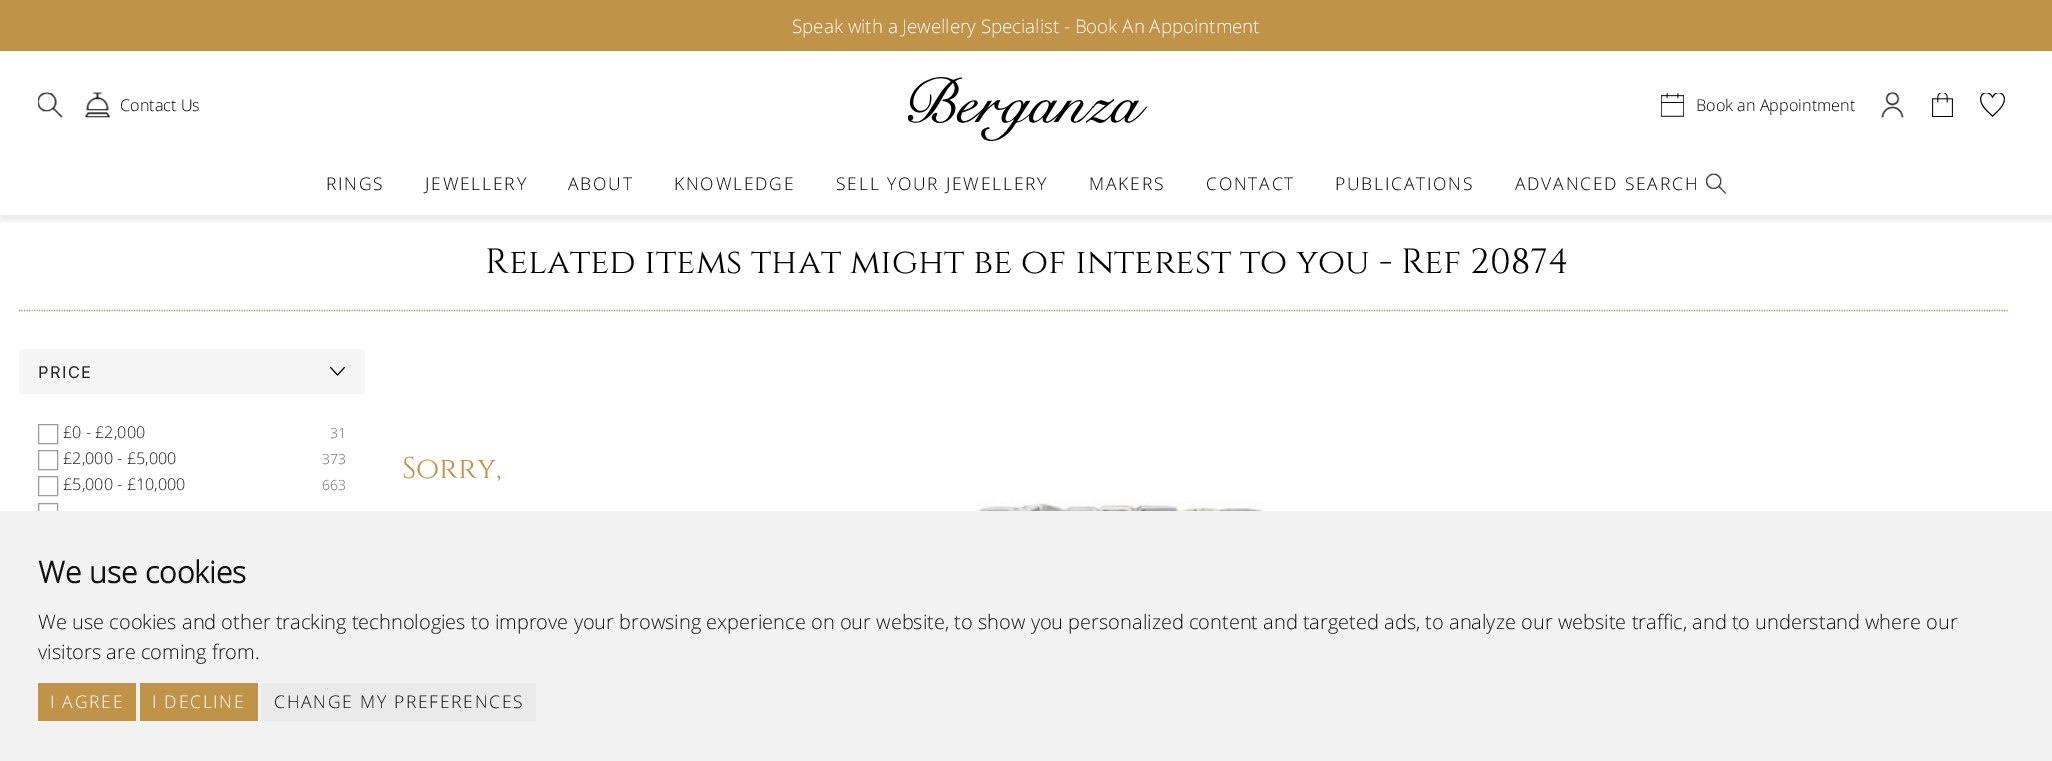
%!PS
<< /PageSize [2052 761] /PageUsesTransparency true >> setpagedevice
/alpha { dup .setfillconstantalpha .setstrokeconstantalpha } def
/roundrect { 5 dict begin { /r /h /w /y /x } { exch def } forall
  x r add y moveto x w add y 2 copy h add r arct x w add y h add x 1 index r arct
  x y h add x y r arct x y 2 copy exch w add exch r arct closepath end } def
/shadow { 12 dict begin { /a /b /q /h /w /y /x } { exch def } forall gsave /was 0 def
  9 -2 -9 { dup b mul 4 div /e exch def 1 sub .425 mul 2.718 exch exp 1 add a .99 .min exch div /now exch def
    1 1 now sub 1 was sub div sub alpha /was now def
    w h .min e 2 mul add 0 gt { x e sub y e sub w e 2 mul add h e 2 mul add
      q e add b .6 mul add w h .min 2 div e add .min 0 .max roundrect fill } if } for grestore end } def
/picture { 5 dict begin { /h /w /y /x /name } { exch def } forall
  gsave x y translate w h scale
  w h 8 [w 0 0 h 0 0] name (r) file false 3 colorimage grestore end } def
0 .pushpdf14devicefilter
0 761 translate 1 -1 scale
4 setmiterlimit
1 setgray
0 0 2052 761 rectfill
0.749 0.58 0.282 setrgbcolor
0 0 2052 51 rectfill
/OpenSans-Light [18.75 0 0 -18.75 0 0] selectfont
1 setgray
792 33 moveto (Speak with a Jewellery Specialist - Book An Appointment) show
(img1.rgb) 38 92 25 26 picture
(img2.rgb) 85 92 26 26 picture
/OpenSans-Light [16.25 0 0 -16.25 0 0] selectfont
0 setgray
120 111 moveto (Contact Us) show
(img3.rgb) 907 77 240 65 picture
(img4.rgb) 1661 93 23 24 picture
1696 111 moveto (Book an Appointment) show
(img5.rgb) 1881 92 23 26 picture
(img6.rgb) 1932 93 21 24 picture
(img7.rgb) 1980 93 25 24 picture
/OpenSans-Light [17.5 0 0 -17.5 0 0] selectfont
326 190 moveto 1.8 0 (RINGS) ashow
425 190 moveto 1.8 0 (JEWELLERY) ashow
568 190 moveto 1.8 0 (ABOUT) ashow
674 190 moveto 1.8 0 (KNOWLEDGE) ashow
836 190 moveto 1.8 0 (SELL YOUR JEWELLERY) ashow
1089 190 moveto 1.8 0 (MAKERS) ashow
1206 190 moveto 1.8 0 (CONTACT) ashow
1335 190 moveto 1.8 0 (PUBLICATIONS) ashow
1515 190 moveto 1.8 0 (ADVANCED SEARCH) ashow
(img8.rgb) 1706 173 21 21 picture
gsave
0 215 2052 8 rectclip
0 214 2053 6 0 4 0.1 shadow
grestore
/Cinzel-Regular [35 0 0 -35 0 0] selectfont
485 273 moveto (Related items that might be of interest to you - Ref 20874) show
0.749 0.58 0.282 setrgbcolor
1.2 setlinewidth
[1.25 1.25] 0 setdash
newpath 19 310.5 moveto 2009 310.5 lineto stroke
0.961 setgray
newpath 23 349 moveto 361 349 lineto 363 349 365 351 365 353 curveto 365 394 lineto 19 394 lineto 19 353 lineto 19 351 21 349 23 349 curveto closepath fill
/Inter-Regular [16.25 0 0 -16.25 0 0] selectfont
0.133 setgray
38 378 moveto 1.5 0 (PRICE) ashow
(img9.rgb) 330 366 15 10 picture
0.608 setgray
1 setlinewidth
[] 0 setdash
38.5 424.5 19 19 rectstroke
/OpenSans-Light [16.25 0 0 -16.25 0 0] selectfont
0.133 setgray
63 438 moveto (£0 - £2,000) show
/OpenSans-Light [14 0 0 -14 0 0] selectfont
0.427 0.416 0.416 setrgbcolor
330 438 moveto (31) show
0.608 setgray
38.5 450.5 19 19 rectstroke
/OpenSans-Light [16.25 0 0 -16.25 0 0] selectfont
0.133 setgray
63 464 moveto (£2,000 - £5,000) show
/OpenSans-Light [14 0 0 -14 0 0] selectfont
0.427 0.416 0.416 setrgbcolor
322 464 moveto (373) show
0.608 setgray
38.5 476.5 19 19 rectstroke
/OpenSans-Light [16.25 0 0 -16.25 0 0] selectfont
0.133 setgray
63 490 moveto (£5,000 - £10,000) show
/OpenSans-Light [14 0 0 -14 0 0] selectfont
0.427 0.416 0.416 setrgbcolor
322 490 moveto (663) show
0.608 setgray
38.5 503.5 19 19 rectstroke
/Cinzel-Regular [30 0 0 -30 0 0] selectfont
0.749 0.58 0.282 setrgbcolor
402 478 moveto (Sorry,) show
(img10.rgb) 924 501 387 10 picture
0.949 setgray
0 511 2052 250 rectfill
/OpenSans-Bold [30 0 0 -30 0 0] selectfont
0.067 setgray
38 583 moveto (We use cookies) show
/OpenSans-Light [20 0 0 -20 0 0] selectfont
38 629 moveto (We use cookies and other tracking technologies to improve your browsing experience on our website, to show you personalized content and targeted ads, to analyze our website traffic, and to understand where our) show
38 659 moveto (visitors are coming from.) show
0.749 0.58 0.282 setrgbcolor
38 683 98 38 rectfill
/OpenSans-Light [17.5 0 0 -17.5 0 0] selectfont
1 setgray
50 708 moveto 1.75 0 (I AGREE) ashow
0.749 0.58 0.282 setrgbcolor
140 683 118 38 rectfill
1 setgray
152 708 moveto 1.75 0 (I DECLINE) ashow
0.918 setgray
261 683 275 38 rectfill
0.067 setgray
274 708 moveto 1.75 0 (CHANGE MY PREFERENCES) ashow
.poppdf14devicefilter showpage
